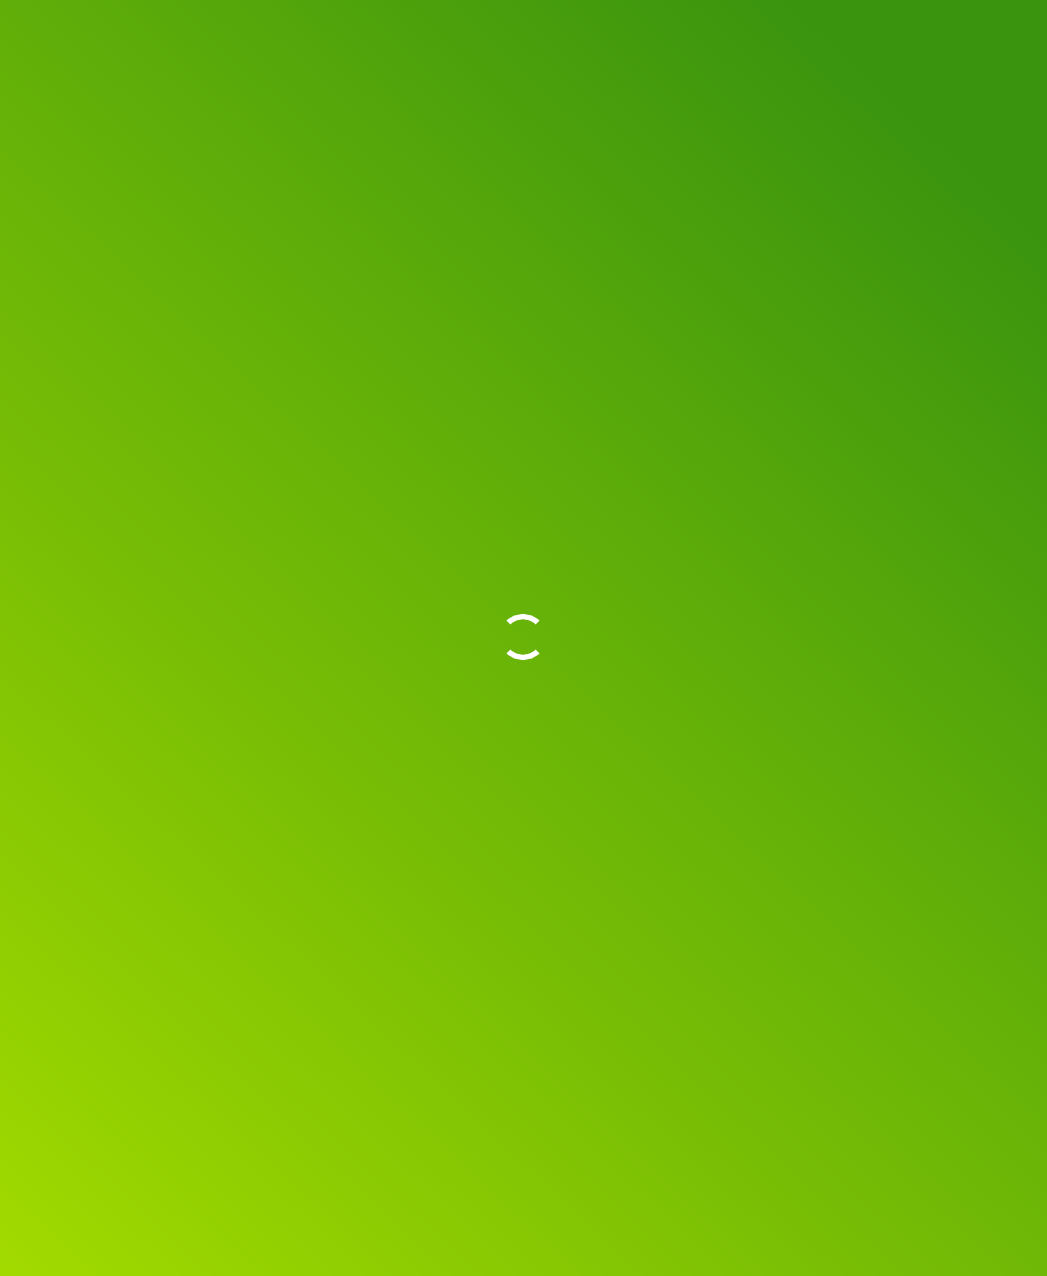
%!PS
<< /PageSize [1047 1276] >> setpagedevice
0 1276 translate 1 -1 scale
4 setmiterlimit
1 setgray
0 0 1047 1276 rectfill
gsave newpath 0 0 moveto 1047 0 lineto 1047 1276 lineto 0 1276 lineto closepath clip newpath
<< /ShadingType 2 /ColorSpace /DeviceRGB /Coords [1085 36 -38 1240] /Extend [true true] /Function << /FunctionType 3 /Domain [0 1] /Functions [<< /FunctionType 2 /Domain [0 1] /C0 [0.227 0.58 0.055] /C1 [0.227 0.58 0.055] /N 1 >> << /FunctionType 2 /Domain [0 1] /C0 [0.227 0.58 0.055] /C1 [0.639 0.859 0] /N 1 >>] /Bounds [0.1] /Encode [0 1 0 1] >> >> shfill grestore
5 setlinewidth
newpath 508.5 622.5 moveto 516.5 614.5 529.5 614.5 537.5 622.5 curveto 537.5 651.5 moveto 529.5 659.5 516.5 659.5 508.5 651.5 curveto stroke
showpage
